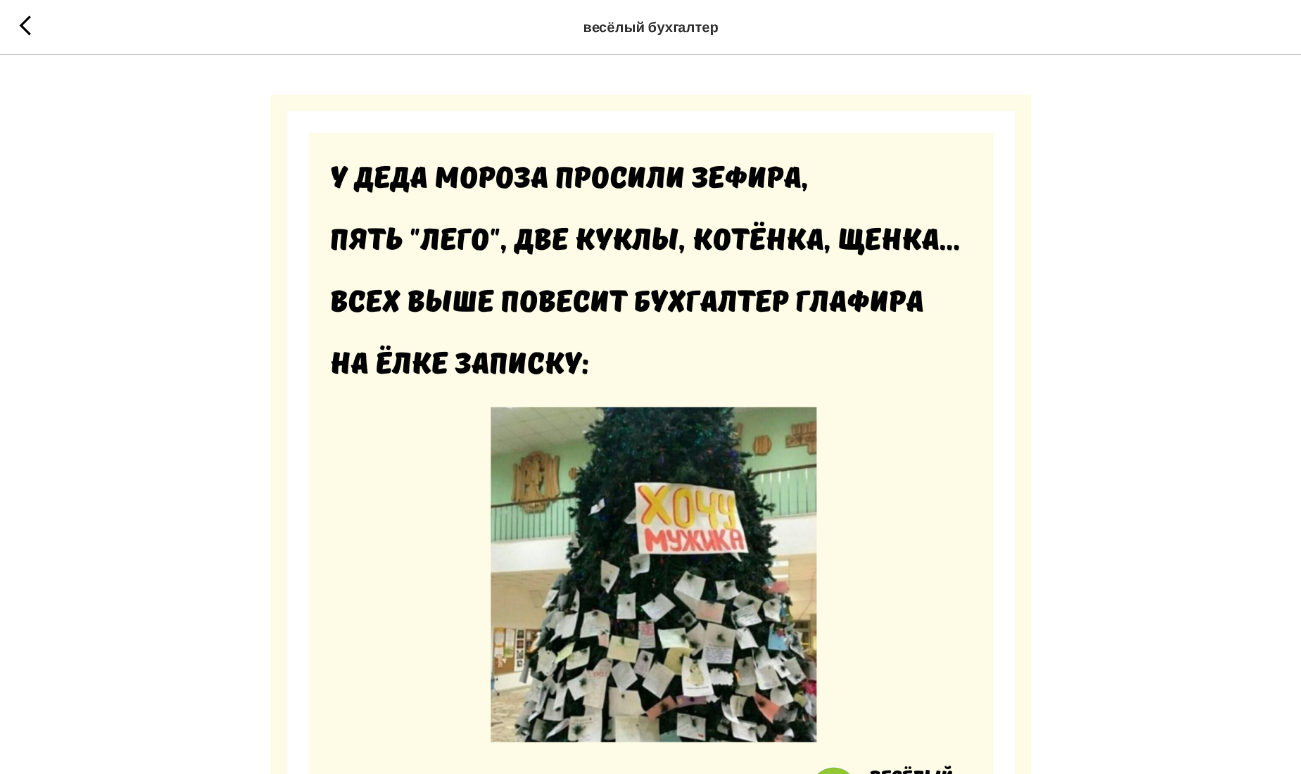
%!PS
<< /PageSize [1301 774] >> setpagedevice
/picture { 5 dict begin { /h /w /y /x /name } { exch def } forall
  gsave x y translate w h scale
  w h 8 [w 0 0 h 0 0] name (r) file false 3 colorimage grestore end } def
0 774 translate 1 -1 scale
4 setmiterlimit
1 setgray
0 0 1301 774 rectfill
0.8 setgray
0 54 1301 1 rectfill
0 setgray
2 setlinewidth
newpath 30 34.5 moveto 21 25.5 lineto 30 16.5 lineto stroke
/LiberationSans-Bold [14 0 0 -14 0 0] selectfont
0.2 setgray
583 32 moveto (весёлый бухгалтер) show
(img1.rgb) 271 95 760 679 picture
showpage
